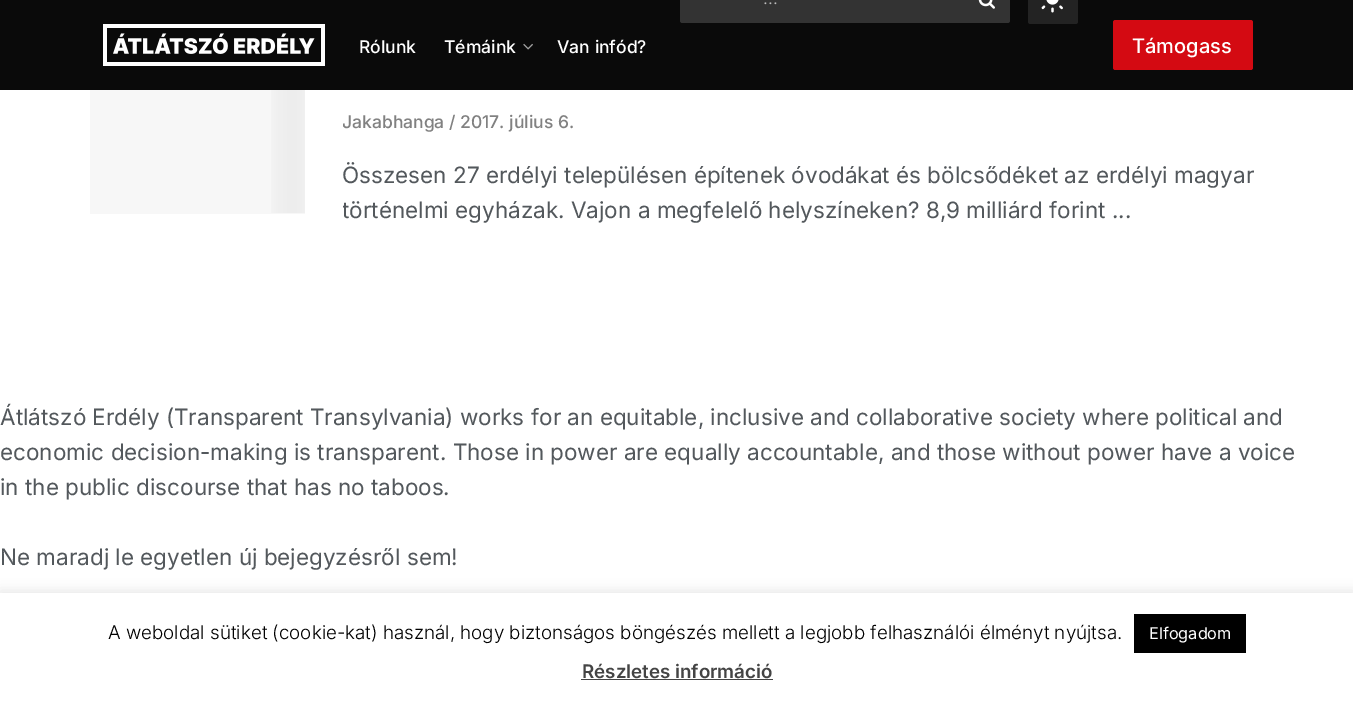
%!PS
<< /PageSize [1353 703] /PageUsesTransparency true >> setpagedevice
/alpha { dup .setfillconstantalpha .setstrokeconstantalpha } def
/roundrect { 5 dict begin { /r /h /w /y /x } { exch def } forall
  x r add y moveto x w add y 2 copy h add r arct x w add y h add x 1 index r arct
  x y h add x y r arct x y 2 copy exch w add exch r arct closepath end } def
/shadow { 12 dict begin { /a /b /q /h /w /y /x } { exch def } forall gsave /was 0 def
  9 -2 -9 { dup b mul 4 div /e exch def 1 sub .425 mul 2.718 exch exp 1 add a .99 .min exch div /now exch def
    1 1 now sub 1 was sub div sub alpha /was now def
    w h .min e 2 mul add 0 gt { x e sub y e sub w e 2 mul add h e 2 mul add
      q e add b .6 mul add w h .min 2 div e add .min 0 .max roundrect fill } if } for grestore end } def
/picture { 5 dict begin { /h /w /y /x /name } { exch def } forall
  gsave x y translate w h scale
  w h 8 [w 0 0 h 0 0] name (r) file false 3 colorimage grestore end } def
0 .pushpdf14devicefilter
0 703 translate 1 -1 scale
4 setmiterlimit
1 setgray
0 0 1353 703 rectfill
0.039 setgray
0 0 1353 90 rectfill
0.2 setgray
680 -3 330 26 2.5 roundrect fill
/Inter-Light [17.5 0 0 -17.5 0 0] selectfont
0.741 setgray
763 4 moveto (...) show
(img1.rgb) 978 0 17 9 picture
0.137 setgray
1028 -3 50 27 2.5 roundrect fill
(img2.rgb) 1041 0 22 13 picture
(img3.rgb) 103 24 222 42 picture
/Inter-Medium [17.5 0 0 -17.5 0 0] selectfont
1 setgray
359 53 moveto (Rólunk) show
444 53 moveto (Témáink) show
(img4.rgb) 523 43 10 7 picture
557 53 moveto (Van infód?) show
0.831 0.039 0.071 setrgbcolor
1113 20 140 50 2.5 roundrect fill
/Inter-Medium [20 0 0 -20 0 0] selectfont
1 setgray
1132 53 moveto (Támogass) show
0.969 setgray
90 90 215 124 rectfill
(img5.rgb) 271 90 34 123 picture
gsave
343 61 922 168 rectclip
/Inter-Medium [17.5 0 0 -17.5 0 0] selectfont
0.506 setgray
342 128 moveto (Jakabhanga) show
grestore
/Inter-Medium [17.5 0 0 -17.5 0 0] selectfont
0.506 setgray
449 128 moveto (/) show
460 128 moveto (2017. július 6.) show
/Inter-Regular [22.5 0 0 -22.5 0 0] selectfont
0.325 0.345 0.361 setrgbcolor
342 183 moveto (Összesen 27 erdélyi településen építenek óvodákat és bölcsődéket az erdélyi magyar) show
gsave
343 61 922 168 rectclip
342 218 moveto (történelmi egyházak. Vajon a megfelelő helyszíneken? 8,9 milliárd forint ...) show
grestore
0 425 moveto (Átlátszó Erdély \(Transparent Transylvania\) works for an equitable, inclusive and collaborative society where political and) show
0 460 moveto (economic decision-making is transparent. Those in power are equally accountable, and those without power have a voice) show
0 495 moveto (in the public discourse that has no taboos.) show
0 565 moveto (Ne maradj le egyetlen új bejegyzésről sem!) show
0.675 0.671 0.671 setrgbcolor
0 591 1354 112 0 6 0.3 shadow
1 setgray
0 593 1353 110 rectfill
/Inter-Light [18.75 0 0 -18.75 0 0] selectfont
0 setgray
108 639 moveto (A weboldal sütiket \(cookie-kat\) használ, hogy biztonságos böngészés mellett a legjobb felhasználói élményt nyújtsa.) show
1134 614 112 39 rectfill
/Inter-Regular [16.25 0 0 -16.25 0 0] selectfont
1 setgray
1149 639 moveto (Elfogadom) show
/Inter-SemiBold [18.75 0 0 -18.75 0 0] selectfont
0.267 setgray
582 678 moveto (Részletes információ) show
581 679 192 1 rectfill
.poppdf14devicefilter showpage
